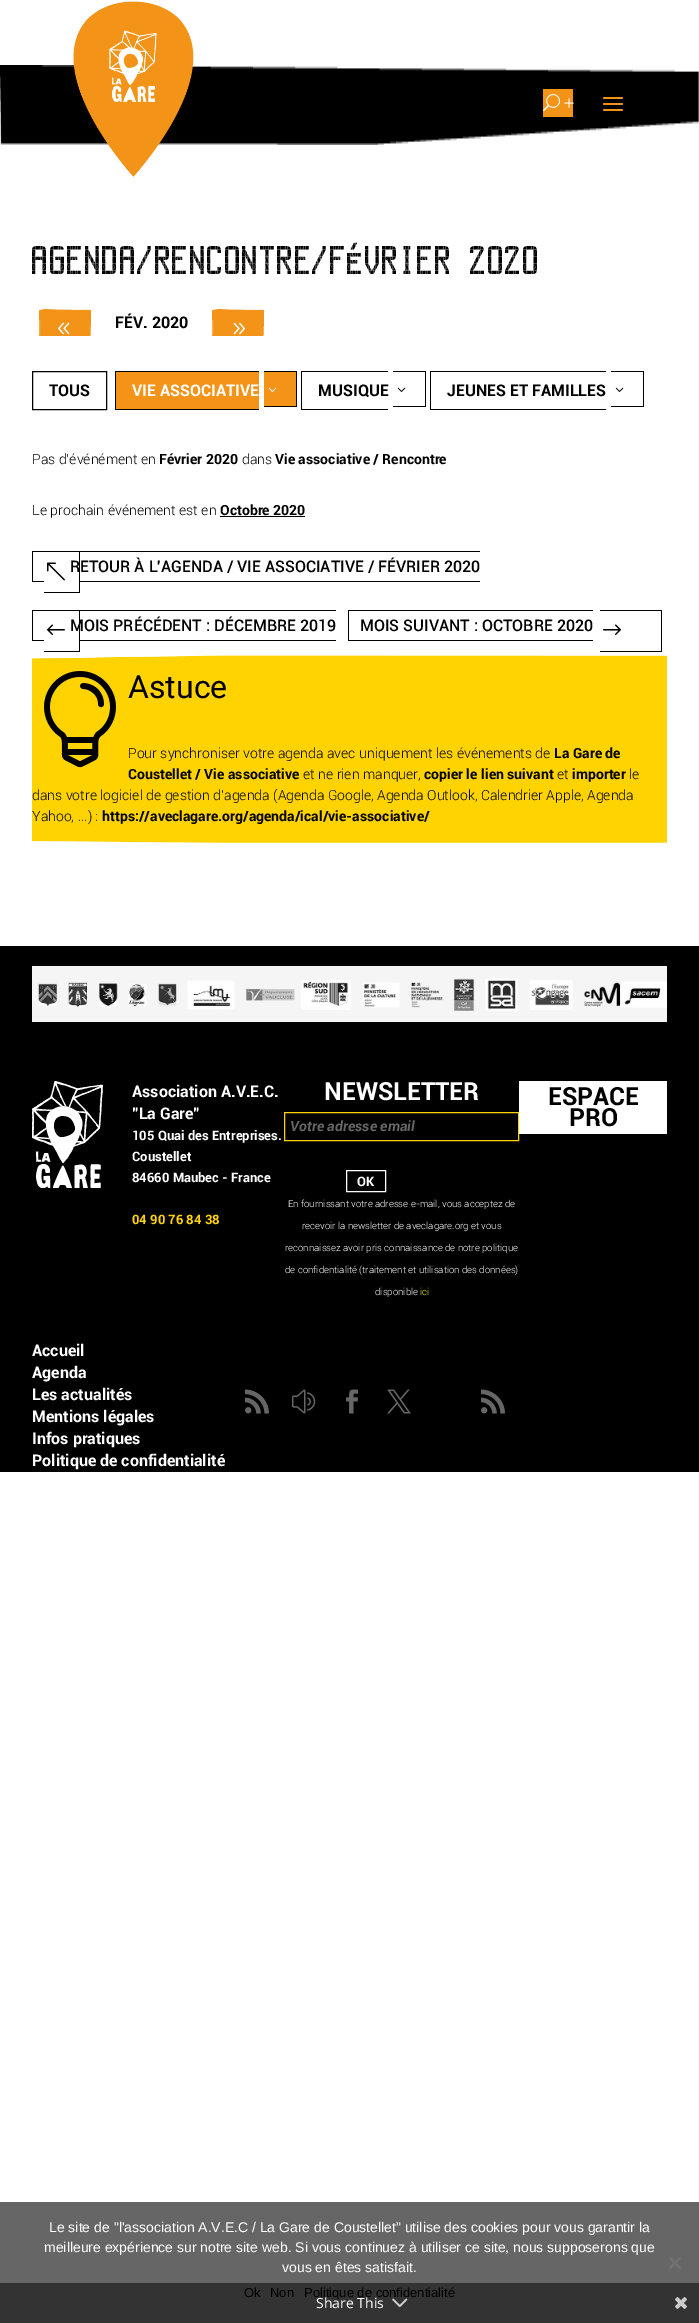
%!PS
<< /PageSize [699 2323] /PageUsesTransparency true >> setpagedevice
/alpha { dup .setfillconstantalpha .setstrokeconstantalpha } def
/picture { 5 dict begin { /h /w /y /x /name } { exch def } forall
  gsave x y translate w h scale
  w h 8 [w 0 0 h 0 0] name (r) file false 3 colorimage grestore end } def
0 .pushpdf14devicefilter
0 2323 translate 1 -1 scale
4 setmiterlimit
1 setgray
0 0 699 2323 rectfill
(img1.rgb) 0 65 699 80 picture
(img2.rgb) 73 1 121 176 picture
0.953 0.58 0.098 setrgbcolor
543 89 30 28 rectfill
(img3.rgb) 543 94 31 18 picture
(img4.rgb) 603 97 20 14 picture
/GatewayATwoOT-Regular [40 0 0 -40 0 0] selectfont
0 setgray
32 274 moveto (AGENDA/RENCONTRE/FÉVRIER 2020) show
(img5.rgb) 39 309 52 27 picture
(img6.rgb) 58 322 12 13 picture
/Roboto-Bold [16 0 0 -16 0 0] selectfont
115 328 moveto (FÉV. 2020) show
(img5.rgb) 212 309 52 27 picture
(img7.rgb) 233 322 12 13 picture
32.5 371.5 74 38 rectstroke
49 396 moveto (TOUS) show
0.953 0.58 0.098 setrgbcolor
116 372 143 37 rectfill
1 setgray
132 396 moveto (VIE ASSOCIATIVE) show
0 setgray
115 371 144 1 rectfill
115 409 144 1 rectfill
115 371 1 39 rectfill
0.953 0.58 0.098 setrgbcolor
264 372 32 34 rectfill
0 setgray
264 371 33 1 rectfill
296 371 1 36 rectfill
264 406 33 1 rectfill
(img8.rgb) 268 387 9 5 picture
318 396 moveto (MUSIQUE) show
301 371 87 1 rectfill
301 409 87 1 rectfill
301 371 1 39 rectfill
393 371 33 1 rectfill
425 371 1 36 rectfill
393 406 33 1 rectfill
(img9.rgb) 397 387 9 5 picture
447 396 moveto (JEUNES ET FAMILLES) show
430 371 176 1 rectfill
430 409 176 1 rectfill
430 371 1 39 rectfill
611 371 33 1 rectfill
643 371 1 36 rectfill
611 406 33 1 rectfill
(img9.rgb) 615 387 9 5 picture
/Roboto-Light [14 0 0 -14 0 0] selectfont
32 464 moveto (Pas d'événément en) show
/Roboto-Bold [14 0 0 -14 0 0] selectfont
159 464 moveto (Février 2020) show
/Roboto-Light [14 0 0 -14 0 0] selectfont
242 464 moveto (dans) show
/Roboto-Bold [14 0 0 -14 0 0] selectfont
275 464 moveto (Vie associative / Rencontre) show
/Roboto-Light [14 0 0 -14 0 0] selectfont
32 515 moveto (Le prochain événement est en) show
/Roboto-Bold [14 0 0 -14 0 0] selectfont
220 515 moveto (Octobre 2020) show
220 516 85 1 rectfill
32 551 448 1 rectfill
32 581 448 1 rectfill
32 551 1 31 rectfill
1 setgray
44 581 35 1 rectfill
0 setgray
79 551 1 42 rectfill
44 592 36 1 rectfill
(img10.rgb) 47 562 18 19 picture
/Roboto-Medium [16 0 0 -16 0 0] selectfont
70 572 moveto (RETOUR À L'AGENDA / VIE ASSOCIATIVE / FÉVRIER 2020) show
32 610 304 1 rectfill
32 640 304 1 rectfill
32 610 1 31 rectfill
1 setgray
44 640 35 1 rectfill
0 setgray
79 610 1 42 rectfill
44 651 36 1 rectfill
(img11.rgb) 47 624 18 11 picture
70 631 moveto (MOIS PRÉCÉDENT : DÉCEMBRE 2019) show
348 610 245 1 rectfill
348 640 245 1 rectfill
348 610 1 31 rectfill
600 610 62 1 rectfill
661 610 1 42 rectfill
600 651 62 1 rectfill
360 631 moveto (MOIS SUIVANT : OCTOBRE 2020) show
(img12.rgb) 603 624 18 11 picture
(img13.rgb) 32 655 635 188 picture
(img14.rgb) 44 671 72 97 picture
/Roboto-Regular [32 0 0 -32 0 0] selectfont
128 698 moveto (Astuce) show
/Roboto-Light [14 0 0 -14 0 0] selectfont
128 758 moveto (Pour synchroniser votre agenda avec uniquement les événements de) show
/Roboto-Bold [14 0 0 -14 0 0] selectfont
554 758 moveto (La Gare de) show
128 779 moveto (Coustellet / Vie associative) show
/Roboto-Light [14 0 0 -14 0 0] selectfont
303 779 moveto (et ne rien manquer,) show
/Roboto-Bold [14 0 0 -14 0 0] selectfont
424 779 moveto (copier le lien suivant) show
/Roboto-Light [14 0 0 -14 0 0] selectfont
557 779 moveto (et) show
/Roboto-Bold [14 0 0 -14 0 0] selectfont
572 779 moveto (importer) show
/Roboto-Light [14 0 0 -14 0 0] selectfont
629 779 moveto (le) show
32 800 moveto (dans votre logiciel de gestion d'agenda \(Agenda Google, Agenda Outlook, Calendrier Apple, Agenda) show
32 821 moveto (Yahoo, ...\) :) show
/Roboto-Bold [14 0 0 -14 0 0] selectfont
102 821 moveto (https://aveclagare.org/agenda/ical/vie-associative/) show
0 946 699 526 rectfill
(img15.rgb) 32 966 635 56 picture
(img16.rgb) 32 1081 71 107 picture
/Roboto-Bold [16 0 0 -16 0 0] selectfont
1 setgray
132 1097 moveto (Association A.V.E.C.) show
132 1119 moveto ("La Gare") show
/Roboto-Bold [13 0 0 -13 0 0] selectfont
132 1140 moveto (105 Quai des Entreprises.) show
132 1161 moveto (Coustellet) show
132 1182 moveto (84660 Maubec - France) show
1 0.827 0 setrgbcolor
132 1224 moveto (04 90 76 84 38) show
/Roboto-Bold [25 0 0 -25 0 0] selectfont
1 setgray
324 1100 moveto (NEWSLETTER) show
1 0.827 0 setrgbcolor
284.5 1112.5 234 28 rectstroke
/Roboto-BoldItalic [14 0 0 -14 0 0] selectfont
0.4 setgray
290 1131 moveto (Votre adresse email) show
1 setgray
346.5 1170.5 39 21 rectstroke
/Roboto-Bold [13 0 0 -13 0 0] selectfont
357 1186 moveto (OK) show
/Roboto-Light [9.6 0 0 -9.6 0 0] selectfont
288 1207 moveto (En fournissant votre adresse e-mail, vous acceptez de) show
302 1229 moveto (recevoir la newsletter de aveclagare.org et vous) show
285 1251 moveto (reconnaissez avoir pris connaissance de notre politique) show
285 1273 moveto (de confidentialité \(traitement et utilisation des données\)) show
375 1295 moveto (disponible) show
1 1 0 setrgbcolor
420 1295 moveto (ici) show
1 setgray
519 1081 148 53 rectfill
/Roboto-Bold [25 0 0 -25 0 0] selectfont
0 setgray
548 1105 moveto (ESPACE) show
569 1126 moveto (PRO) show
/Roboto-Bold [16 0 0 -16 0 0] selectfont
1 setgray
32 1356 moveto (Accueil) show
32 1378 moveto (Agenda) show
32 1400 moveto (Les actualités) show
32 1422 moveto (Mentions légales) show
32 1444 moveto (Infos pratiques) show
32 1466 moveto (Politique de confidentialité) show
(img17.rgb) 245 1389 24 25 picture
(img18.rgb) 292 1389 24 25 picture
(img19.rgb) 346 1389 12 25 picture
(img20.rgb) 387 1389 24 25 picture
(img17.rgb) 481 1389 24 25 picture
0.4 setgray
0 2202 699 121 rectfill
/LiberationSans-Regular [14 0 0 -14 0 0] selectfont
1 setgray
49 2232 moveto (Le site de "l'association A.V.E.C / La Gare de Coustellet" utilise des cookies pour vous garantir la) show
44 2252 moveto (meilleure expérience sur notre site web. Si vous continuez à utiliser ce site, nous supposerons que) show
282 2272 moveto (vous en êtes satisfait.) show
0.451 setgray
newpath 679.5 2257 moveto 681 2258.5 lineto 670.5 2269 lineto 669 2267.5 lineto closepath fill
newpath 669 2258.5 moveto 670.5 2257 lineto 681 2267.5 lineto 679.5 2269 lineto closepath fill
/LiberationSans-Regular [13 0 0 -13 0 0] selectfont
0 setgray
244 2297 moveto (Ok) show
270 2297 moveto (Non) show
304 2297 moveto (Politique de confidentialité) show
0.5 alpha
0 2283 699 40 rectfill
/OpenSans-Regular [14 0 0 -14 0 0] selectfont
1 alpha
1 setgray
316 2308 moveto (Share This) show
(img21.rgb) 392 2298 16 10 picture
(img22.rgb) 675 2297 12 12 picture
.poppdf14devicefilter showpage
